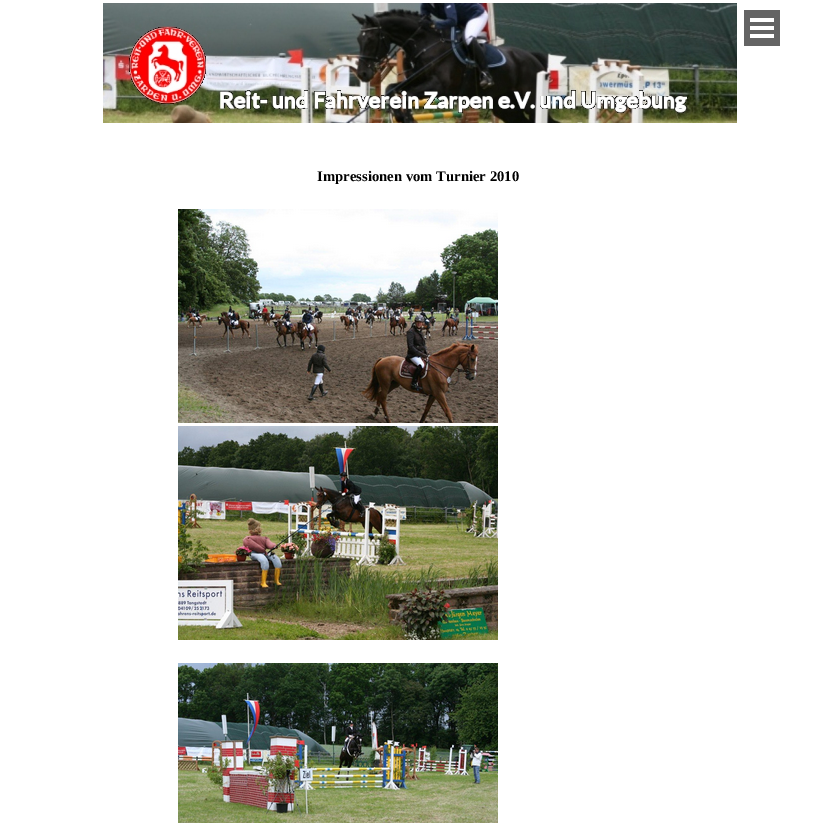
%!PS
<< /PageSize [840 823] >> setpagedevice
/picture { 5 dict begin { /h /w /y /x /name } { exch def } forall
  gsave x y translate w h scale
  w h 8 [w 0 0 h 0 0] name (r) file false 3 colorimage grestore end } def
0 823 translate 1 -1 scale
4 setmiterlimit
1 setgray
0 0 840 823 rectfill
(img1.rgb) 103 3 634 120 picture
0.392 setgray
744 10 36 36 rectfill
1 setgray
750 18 24 4 rectfill
750 26 24 4 rectfill
750 34 24 4 rectfill
/LiberationSerif-Bold [14.7 0 0 -14.7 0 0] selectfont
0 setgray
317 181 moveto (Impressionen vom Turnier 2010) show
(img2.rgb) 178 209 320 214 picture
(img3.rgb) 178 426 320 214 picture
(img4.rgb) 178 663 320 160 picture
showpage
